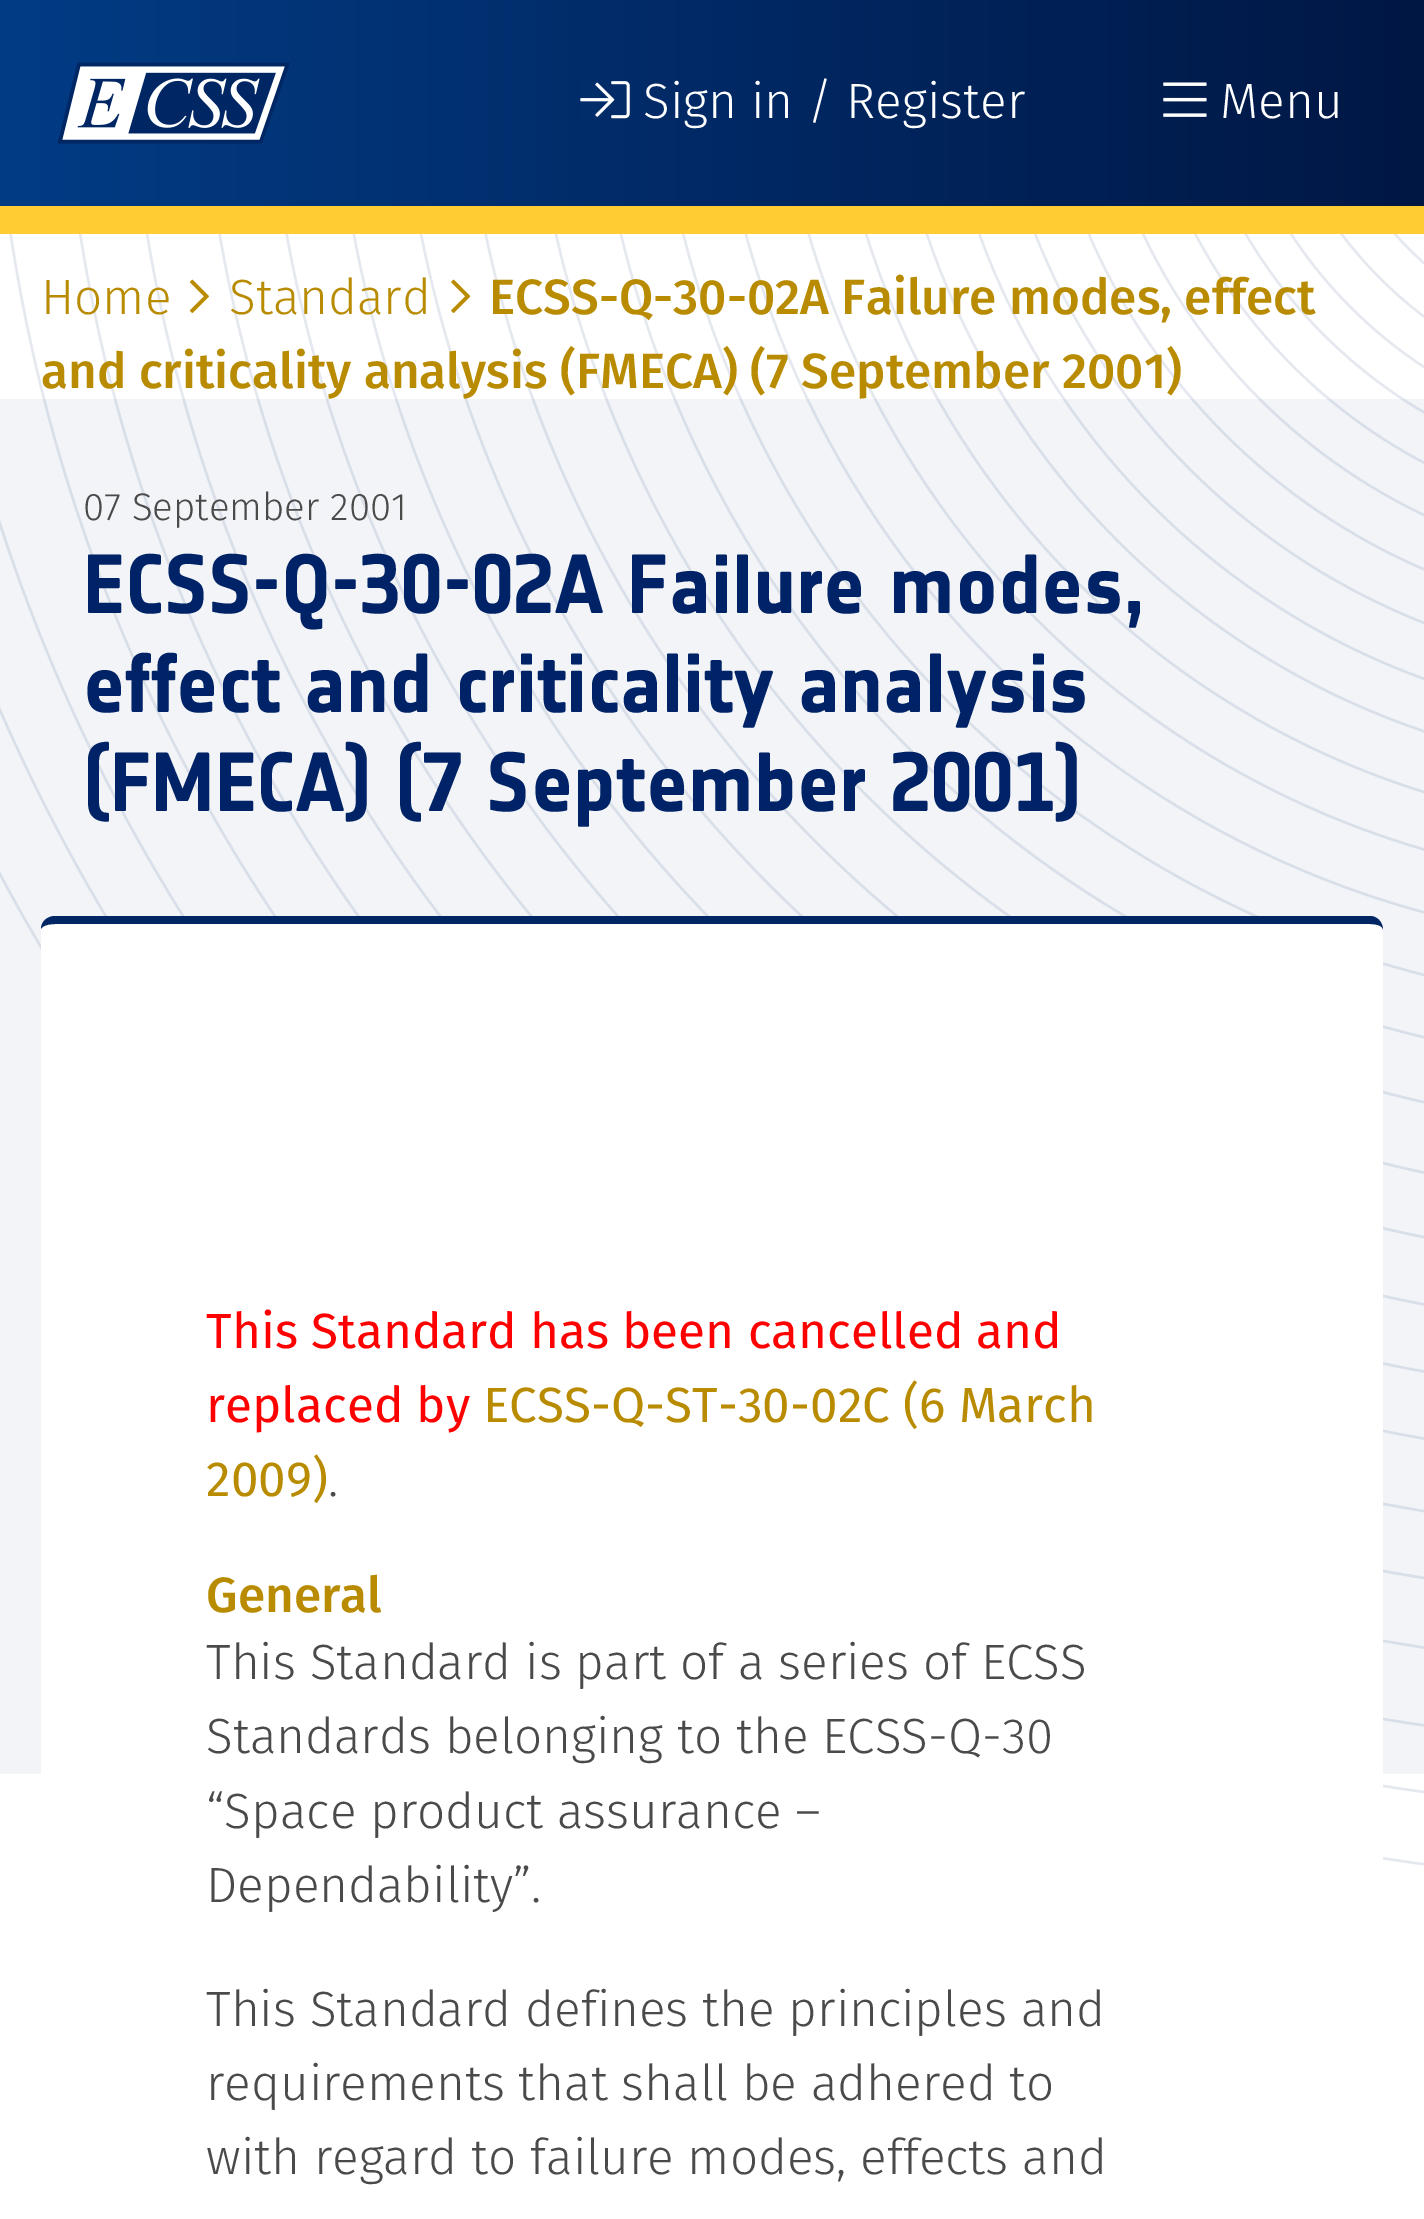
%!PS
<< /PageSize [1424 2219] >> setpagedevice
/roundrect { 5 dict begin { /r /h /w /y /x } { exch def } forall
  x r add y moveto x w add y 2 copy h add r arct x w add y h add x 1 index r arct
  x y h add x y r arct x y 2 copy exch w add exch r arct closepath end } def
/picture { 5 dict begin { /h /w /y /x /name } { exch def } forall
  gsave x y translate w h scale
  w h 8 [w 0 0 h 0 0] name (r) file false 3 colorimage grestore end } def
0 2219 translate 1 -1 scale
4 setmiterlimit
1 setgray
0 0 1424 2219 rectfill
gsave newpath 0 0 moveto 1424 0 lineto 1424 206 lineto 0 206 lineto closepath clip newpath
<< /ShadingType 2 /ColorSpace /DeviceRGB /Coords [0 103 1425 103] /Extend [true true] /Function << /FunctionType 2 /Domain [0 1] /C0 [0.004 0.235 0.522] /C1 [0 0.09 0.267] /N 1 >> >> shfill grestore
1 0.8 0.2 setrgbcolor
0 206 1424 28 rectfill
(img1.rgb) 57 62 233 82 picture
(img2.rgb) 580 81 50 38 picture
/FiraSans-Light [49.5 0 0 -49.5 0 0] selectfont
1 setgray
643 118 moveto (Sign in / Register) show
(img3.rgb) 1163 82 44 35 picture
1220 118 moveto (Menu) show
0.949 0.957 0.969 setrgbcolor
0 399 1424 1375 rectfill
(img4.rgb) 0 234 1424 1632 picture
0.722 0.545 0 setrgbcolor
41 314 moveto (Home) show
(img5.rgb) 189 279 20 34 picture
229 314 moveto (Standard) show
(img6.rgb) 451 279 20 34 picture
/FiraSans-Medium [49.5 0 0 -49.5 0 0] selectfont
489 314 moveto (ECSS-Q-30-02A Failure modes, effect) show
41 388 moveto (and criticality analysis \(FMECA\) \(7 September 2001\)) show
/FiraSans-Light [38.5 0 0 -38.5 0 0] selectfont
0.29 setgray
83 520 moveto (07 September 2001) show
/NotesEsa-Bold [82.5 0 0 -82.5 0 0] selectfont
0 0.133 0.4 setrgbcolor
83 613 moveto (ECSS-Q-30-02A Failure modes,) show
83 712 moveto (effect and criticality analysis) show
83 811 moveto (\(FMECA\) \(7 September 2001\)) show
1 setgray
41 916 1342 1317 14 roundrect fill
0 0.149 0.392 setrgbcolor
newpath 55 916 moveto 1370 916 lineto 1377 916 1383 922 1383 930 curveto 1383 926 1377 924 1370 924 curveto 55 924 lineto 48 924 42 926 41 929 curveto 41 921 48 916 55 916 curveto closepath fill
/FiraSans-Regular [49.5 0 0 -49.5 0 0] selectfont
1 0 0 setrgbcolor
206 1348 moveto (This Standard has been cancelled and) show
206 1422 moveto (replaced by) show
0.722 0.545 0 setrgbcolor
483 1422 moveto (ECSS-Q-ST-30-02C \(6 March) show
206 1496 moveto (2009\)) show
/FiraSans-Light [49.5 0 0 -49.5 0 0] selectfont
0.29 setgray
328 1496 moveto (.) show
/FiraSans-Medium [49.5 0 0 -49.5 0 0] selectfont
0.722 0.545 0 setrgbcolor
206 1612 moveto (General) show
/FiraSans-Light [49.5 0 0 -49.5 0 0] selectfont
0.29 setgray
206 1679 moveto (This Standard is part of a series of ECSS) show
206 1753 moveto (Standards belonging to the ECSS-Q-30) show
206 1828 moveto (“Space product assurance –) show
206 1902 moveto (Dependability”.) show
206 2026 moveto (This Standard defines the principles and) show
206 2100 moveto (requirements that shall be adhered to) show
206 2174 moveto (with regard to failure modes, effects and) show
showpage
